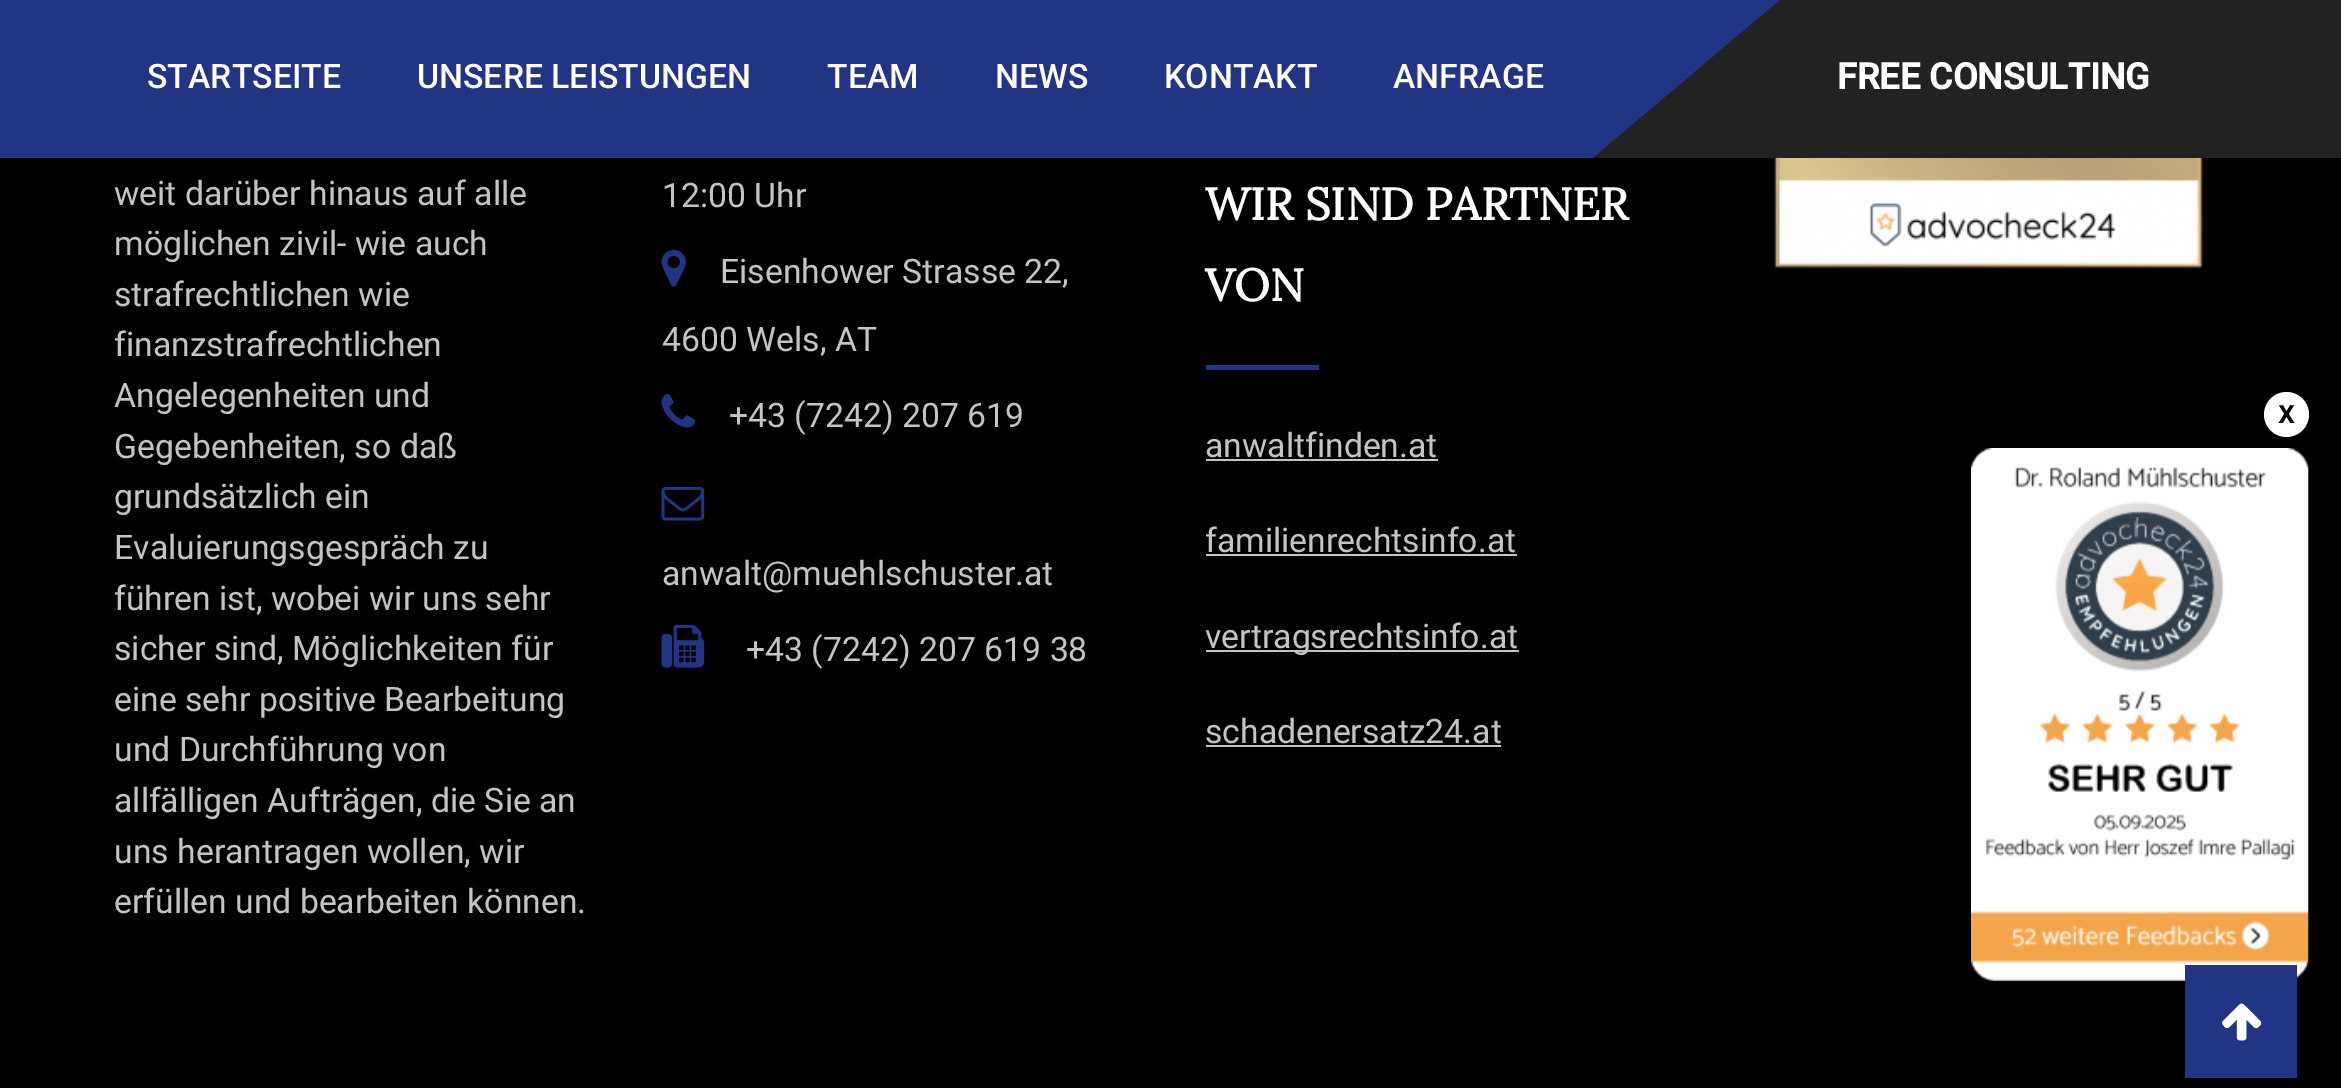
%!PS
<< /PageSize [2341 1088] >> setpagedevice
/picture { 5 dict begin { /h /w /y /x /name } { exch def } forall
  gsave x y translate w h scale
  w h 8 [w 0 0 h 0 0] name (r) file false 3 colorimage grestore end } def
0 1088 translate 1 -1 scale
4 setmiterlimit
0 setgray
0 0 2341 1088 rectfill
0.133 0.208 0.518 setrgbcolor
0 0 1780 158 rectfill
0.133 setgray
1780 0 561 158 rectfill
/Roboto-Medium [33.75 0 0 -33.75 0 0] selectfont
1 setgray
147 88 moveto (STARTSEITE) show
417 88 moveto (UNSERE LEISTUNGEN) show
827 88 moveto (TEAM) show
995 88 moveto (NEWS) show
1164 88 moveto (KONTAKT) show
1393 88 moveto (ANFRAGE) show
0.133 setgray
newpath 1780 0 moveto 1965 0 lineto 1777 158 lineto 1593 158 lineto closepath fill
/Roboto-Bold [36 0 0 -36 0 0] selectfont
1 setgray
1837 89 moveto (FREE CONSULTING) show
/Roboto-Regular [33.75 0 0 -33.75 0 0] selectfont
0.769 setgray
114 205 moveto (weit darüber hinaus auf alle) show
114 255 moveto (möglichen zivil- wie auch) show
114 306 moveto (strafrechtlichen wie) show
114 356 moveto (finanzstrafrechtlichen) show
114 407 moveto (Angelegenheiten und) show
114 458 moveto (Gegebenheiten, so daß) show
114 508 moveto (grundsätzlich ein) show
114 559 moveto (Evaluierungsgespräch zu) show
114 610 moveto (führen ist, wobei wir uns sehr) show
114 660 moveto (sicher sind, Möglichkeiten für) show
114 711 moveto (eine sehr positive Bearbeitung) show
114 761 moveto (und Durchführung von) show
114 812 moveto (allfälligen Aufträgen, die Sie an) show
114 863 moveto (uns herantragen wollen, wir) show
114 913 moveto (erfüllen und bearbeiten können.) show
662 207 moveto (12:00 Uhr) show
(img1.rgb) 661 249 25 38 picture
720 283 moveto (Eisenhower Strasse 22,) show
662 351 moveto (4600 Wels, AT) show
(img2.rgb) 661 393 35 35 picture
729 427 moveto (+43 \(7242\) 207 619) show
(img3.rgb) 661 486 44 35 picture
662 585 moveto (anwalt@muehlschuster.at) show
(img4.rgb) 661 624 44 44 picture
746 661 moveto (+43 \(7242\) 207 619 38) show
/Lora-Bold [45 0 0 -45 0 0] selectfont
1 setgray
1205 220 moveto (WIR SIND PARTNER) show
1205 301 moveto (VON) show
0.133 0.208 0.518 setrgbcolor
1206 365 113 5 rectfill
/Roboto-Regular [33.75 0 0 -33.75 0 0] selectfont
0.769 setgray
1205 457 moveto (anwaltfinden.at) show
1206 459 232 2 rectfill
1205 552 moveto (familienrechtsinfo.at) show
1206 554 311 2 rectfill
1206 650 313 2 rectfill
1205 648 moveto (vertragsrechtsinfo.at) show
1205 743 moveto (schadenersatz24.at) show
1206 745 295 2 rectfill
(img5.rgb) 1774 158 429 111 picture
1 setgray
newpath 2286.5 414.5 22.5 0 360 arc closepath fill
/Roboto-Medium [33.75 0 0 -33.75 0 0] selectfont
0 setgray
2278 423 moveto (x) show
(img6.rgb) 1971 448 338 534 picture
0.133 0.208 0.518 setrgbcolor
2185 965 112 113 rectfill
(img7.rgb) 2222 1003 40 38 picture
showpage
